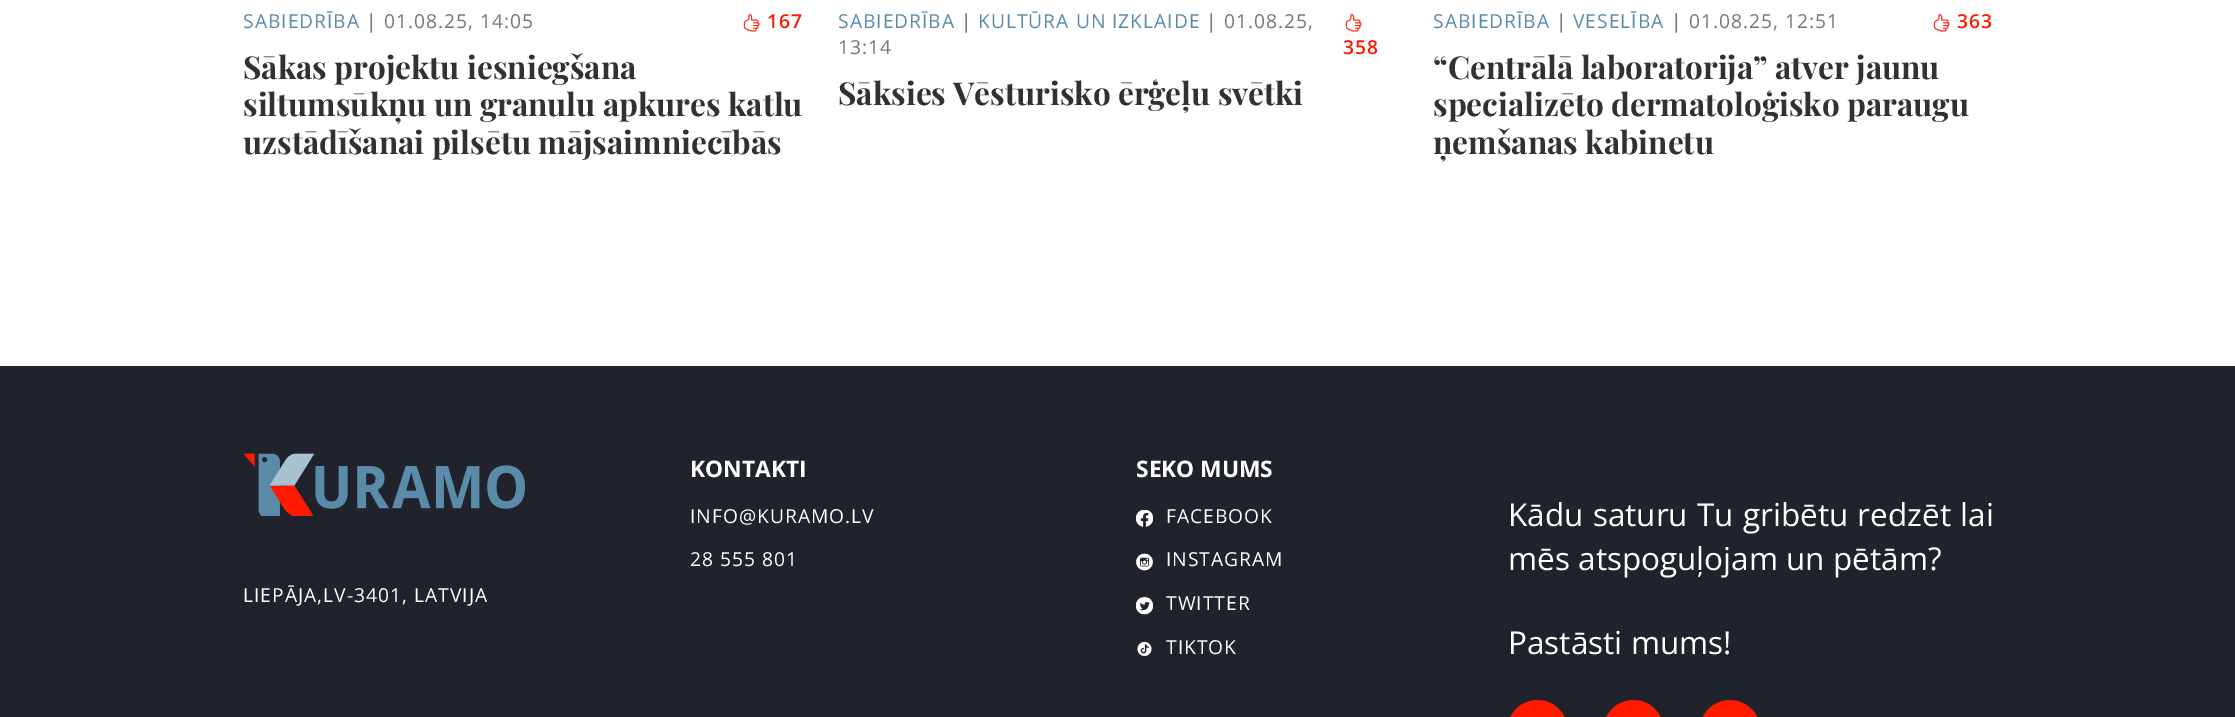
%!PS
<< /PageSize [2235 717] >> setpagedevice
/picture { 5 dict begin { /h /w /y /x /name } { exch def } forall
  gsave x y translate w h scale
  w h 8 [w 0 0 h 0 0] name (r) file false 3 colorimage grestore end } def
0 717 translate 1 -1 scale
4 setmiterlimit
1 setgray
0 0 2235 717 rectfill
/OpenSans-Regular [19.25 0 0 -19.25 0 0] selectfont
0.353 0.549 0.667 setrgbcolor
243 28 moveto 1 0 (SABIEDRĪBA) ashow
0.463 setgray
366 28 moveto 1 0 (| 01.08.25, 14:05) ashow
(img1.rgb) 743 14 17 18 picture
/OpenSans-SemiBold [19.25 0 0 -19.25 0 0] selectfont
1 0.102 0 setrgbcolor
767 28 moveto 1 0 (167) ashow
/PlayfairDisplay-Bold [31.5 0 0 -31.5 0 0] selectfont
0.192 setgray
243 79 moveto (Sākas projektu iesniegšana) show
243 116 moveto (siltumsūkņu un granulu apkures katlu) show
243 154 moveto (uzstādīšanai pilsētu mājsaimniecībās) show
/OpenSans-Regular [19.25 0 0 -19.25 0 0] selectfont
0.353 0.549 0.667 setrgbcolor
838 28 moveto 1 0 (SABIEDRĪBA) ashow
0.463 setgray
961 28 moveto 1 0 (|) ashow
0.353 0.549 0.667 setrgbcolor
978 28 moveto 1 0 (KULTŪRA UN IZKLAIDE) ashow
0.463 setgray
1206 28 moveto 1 0 (| 01.08.25,) ashow
838 54 moveto 1 0 (13:14) ashow
(img1.rgb) 1345 14 17 18 picture
/OpenSans-SemiBold [19.25 0 0 -19.25 0 0] selectfont
1 0.102 0 setrgbcolor
1343 54 moveto 1 0 (358) ashow
/PlayfairDisplay-Bold [31.5 0 0 -31.5 0 0] selectfont
0.192 setgray
838 105 moveto (Sāksies Vēsturisko ērģeļu svētki) show
/OpenSans-Regular [19.25 0 0 -19.25 0 0] selectfont
0.353 0.549 0.667 setrgbcolor
1433 28 moveto 1 0 (SABIEDRĪBA) ashow
0.463 setgray
1556 28 moveto 1 0 (|) ashow
0.353 0.549 0.667 setrgbcolor
1573 28 moveto 1 0 (VESELĪBA) ashow
0.463 setgray
1671 28 moveto 1 0 (| 01.08.25, 12:51) ashow
(img1.rgb) 1933 14 17 18 picture
/OpenSans-SemiBold [19.25 0 0 -19.25 0 0] selectfont
1 0.102 0 setrgbcolor
1957 28 moveto 1 0 (363) ashow
/PlayfairDisplay-Bold [31.5 0 0 -31.5 0 0] selectfont
0.192 setgray
1433 79 moveto (“Centrālā laboratorija” atver jaunu) show
1433 116 moveto (specializēto dermatoloģisko paraugu) show
1433 154 moveto (ņemšanas kabinetu) show
0.125 0.137 0.173 setrgbcolor
0 366 2235 351 rectfill
(img2.rgb) 243 453 282 63 picture
/OpenSans-Regular [19.25 0 0 -19.25 0 0] selectfont
1 setgray
243 602 moveto 1 0 (LIEPĀJA,LV-3401, LATVIJA) ashow
/OpenSans-Bold [22.75 0 0 -22.75 0 0] selectfont
690 477 moveto (KONTAKTI) show
/OpenSans-Regular [19.25 0 0 -19.25 0 0] selectfont
690 523 moveto 1 0 (INFO@KURAMO.LV) ashow
690 566 moveto 1 0 (28 555 801) ashow
/OpenSans-Bold [22.75 0 0 -22.75 0 0] selectfont
1136 477 moveto (SEKO MUMS) show
(img3.rgb) 1136 510 17 17 picture
/OpenSans-Regular [19.25 0 0 -19.25 0 0] selectfont
1166 523 moveto 1 0 (FACEBOOK) ashow
(img4.rgb) 1136 553 17 18 picture
1166 566 moveto 1 0 (INSTAGRAM) ashow
(img5.rgb) 1136 597 17 18 picture
1166 610 moveto 1 0 (TWITTER) ashow
(img6.rgb) 1137 641 15 15 picture
1166 654 moveto 1 0 (TIKTOK) ashow
/OpenSans-Regular [31.5 0 0 -31.5 0 0] selectfont
1508 526 moveto 1 0 32 (Kādu saturu Tu gribētu redzēt lai) widthshow
1508 570 moveto (mēs atspoguļojam un pētām?) show
1508 654 moveto (Pastāsti mums!) show
(img7.rgb) 1510 700 55 17 picture
(img7.rgb) 1606 700 55 17 picture
(img8.rgb) 1702 700 56 17 picture
showpage
